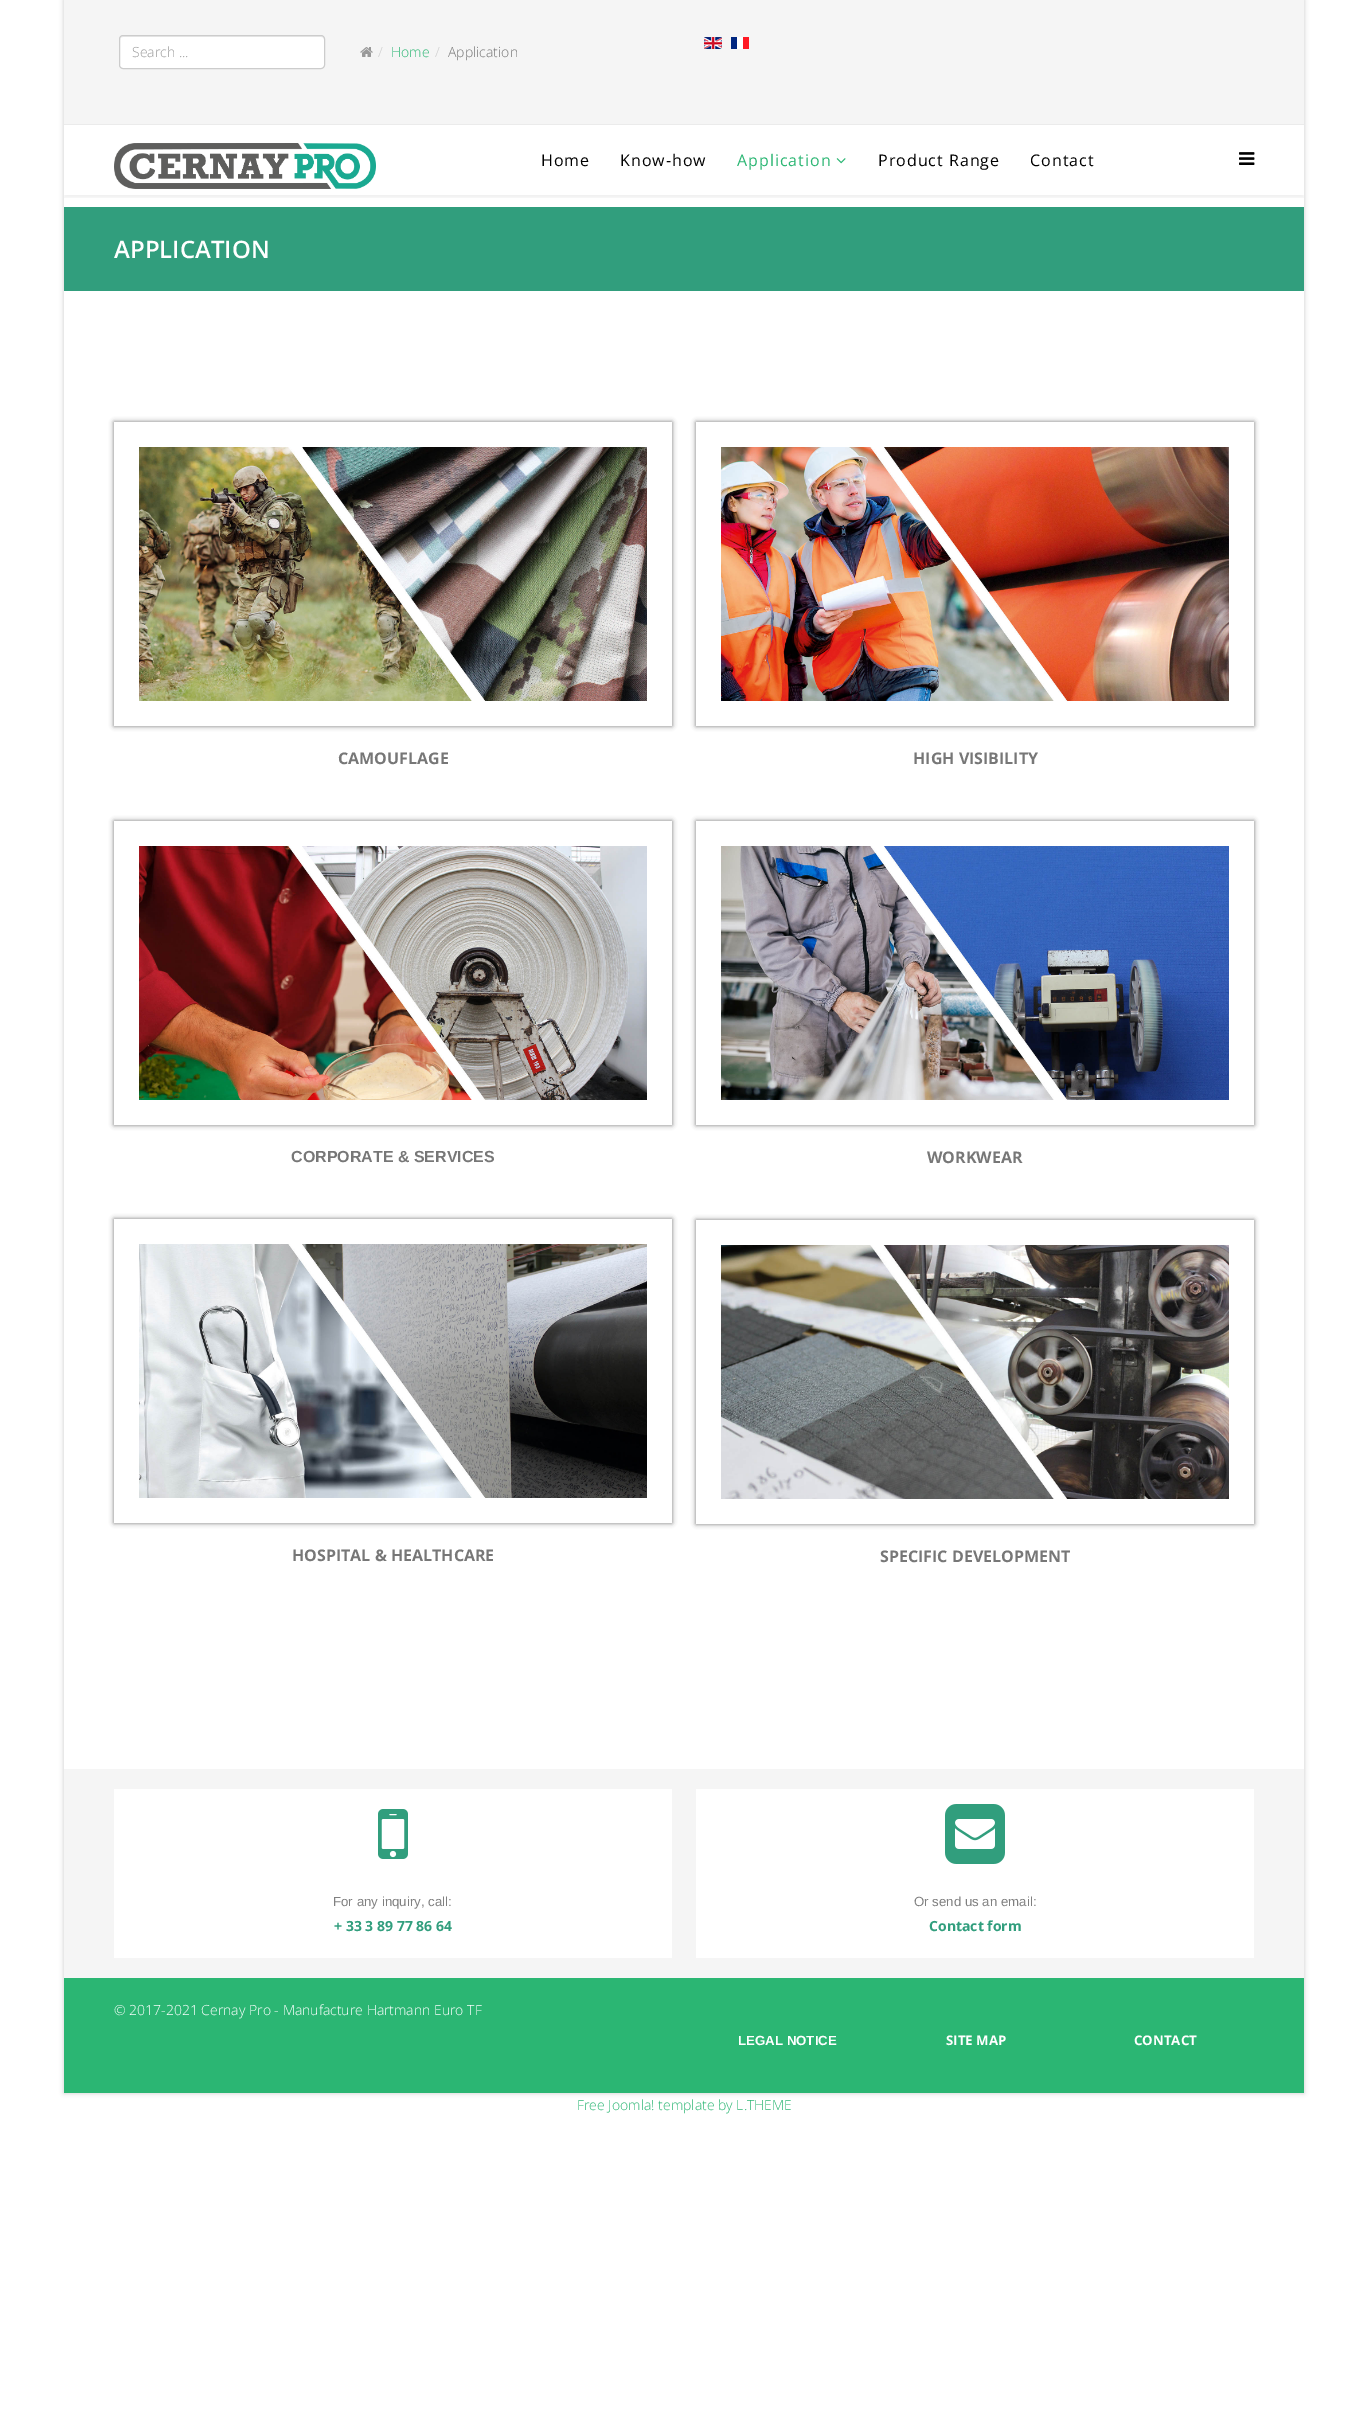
%!PS
<< /PageSize [1368 2435] /PageUsesTransparency true >> setpagedevice
/alpha { dup .setfillconstantalpha .setstrokeconstantalpha } def
/roundrect { 5 dict begin { /r /h /w /y /x } { exch def } forall
  x r add y moveto x w add y 2 copy h add r arct x w add y h add x 1 index r arct
  x y h add x y r arct x y 2 copy exch w add exch r arct closepath end } def
/shadow { 12 dict begin { /a /b /q /h /w /y /x } { exch def } forall gsave /was 0 def
  9 -2 -9 { dup b mul 4 div /e exch def 1 sub .425 mul 2.718 exch exp 1 add a .99 .min exch div /now exch def
    1 1 now sub 1 was sub div sub alpha /was now def
    w h .min e 2 mul add 0 gt { x e sub y e sub w e 2 mul add h e 2 mul add
      q e add b .6 mul add w h .min 2 div e add .min 0 .max roundrect fill } if } for grestore end } def
/picture { 5 dict begin { /h /w /y /x /name } { exch def } forall
  gsave x y translate w h scale
  w h 8 [w 0 0 h 0 0] name (r) file false 3 colorimage grestore end } def
0 .pushpdf14devicefilter
0 2435 translate 1 -1 scale
4 setmiterlimit
1 setgray
0 0 1368 2435 rectfill
gsave
newpath 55 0 moveto 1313 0 lineto 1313 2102 lineto 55 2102 lineto closepath 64 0 moveto 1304 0 lineto 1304 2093 lineto 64 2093 lineto closepath eoclip newpath
0 setgray
64 0 1240 2093 0 2.5 0.2 shadow
grestore
0.961 setgray
64 0 1240 124 rectfill
0.922 setgray
64 124 1240 1 rectfill
(img1.rgb) 704 37 18 12 picture
(img2.rgb) 731 37 18 12 picture
1 setgray
119 35 206 34 4 roundrect fill
0.925 setgray
newpath 123 37 moveto 321 37 lineto 323 37 324 38 324 40 curveto 324 38 323 36 321 36 curveto 123 36 lineto 121 36 120 38 120 40 curveto 120 38 121 37 123 37 curveto closepath fill
0.8 setgray
119.5 35.5 205 33 3.5 roundrect stroke
/OpenSans-Light [14 0 0 -14 0 0] selectfont
0.6 setgray
132 57 moveto (Search ...) show
(img3.rgb) 360 47 13 10 picture
0.8 setgray
378 57 moveto (/) show
0.169 0.714 0.451 setrgbcolor
391 57 moveto (Home) show
0.8 setgray
435 57 moveto (/) show
0.467 setgray
448 57 moveto (Application) show
gsave
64 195 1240 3 rectclip
0 setgray
64 128 1240 70 0 1.5 0.05 shadow
grestore
(img4.rgb) 114 143 262 46 picture
/OpenSans-Regular [16 0 0 -16 0 0] selectfont
0 setgray
541 166 moveto 1 0 (Home) ashow
620 166 moveto 1 0 (Know-how) ashow
0.169 0.714 0.451 setrgbcolor
737 166 moveto 1 0 (Application) ashow
(img5.rgb) 836 158 10 6 picture
0 setgray
878 166 moveto 1 0 (Product Range) ashow
1030 166 moveto 1 0 (Contact) ashow
(img6.rgb) 1239 152 16 13 picture
0.192 0.62 0.49 setrgbcolor
64 207 1240 84 rectfill
/OpenSans-SemiBold [24 0 0 -24 0 0] selectfont
1 setgray
114 258 moveto (APPLICATION) show
gsave
newpath 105 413 moveto 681 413 lineto 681 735 lineto 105 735 lineto closepath 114 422 moveto 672 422 lineto 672 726 lineto 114 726 lineto closepath eoclip newpath
0.471 setgray
114 422 558 304 0 2.5 1 shadow
grestore
(img7.rgb) 139 447 508 254 picture
/OpenSans-Bold [16 0 0 -16 0 0] selectfont
0.467 setgray
338 764 moveto (CAMOUFLAGE) show
gsave
newpath 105 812 moveto 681 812 lineto 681 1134 lineto 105 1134 lineto closepath 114 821 moveto 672 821 lineto 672 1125 lineto 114 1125 lineto closepath eoclip newpath
0.471 setgray
114 821 558 304 0 2.5 1 shadow
grestore
(img8.rgb) 139 846 508 254 picture
/LiberationSans-Bold [16 0 0 -16 0 0] selectfont
291 1162 moveto (CORPORATE & SERVICES) show
gsave
newpath 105 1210 moveto 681 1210 lineto 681 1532 lineto 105 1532 lineto closepath 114 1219 moveto 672 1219 lineto 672 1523 lineto 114 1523 lineto closepath eoclip newpath
0.471 setgray
114 1219 558 304 0 2.5 1 shadow
grestore
(img9.rgb) 139 1244 508 254 picture
/OpenSans-Bold [16 0 0 -16 0 0] selectfont
292 1561 moveto (HOSPITAL & HEALTHCARE) show
gsave
newpath 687 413 moveto 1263 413 lineto 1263 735 lineto 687 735 lineto closepath 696 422 moveto 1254 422 lineto 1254 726 lineto 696 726 lineto closepath eoclip newpath
0.471 setgray
696 422 558 304 0 2.5 1 shadow
grestore
(img10.rgb) 721 447 508 254 picture
913 764 moveto (HIGH VISIBILITY) show
gsave
newpath 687 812 moveto 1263 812 lineto 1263 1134 lineto 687 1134 lineto closepath 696 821 moveto 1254 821 lineto 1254 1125 lineto 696 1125 lineto closepath eoclip newpath
0.471 setgray
696 821 558 304 0 2.5 1 shadow
grestore
(img11.rgb) 721 846 508 254 picture
927 1163 moveto (WORKWEAR) show
gsave
newpath 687 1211 moveto 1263 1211 lineto 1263 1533 lineto 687 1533 lineto closepath 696 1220 moveto 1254 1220 lineto 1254 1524 lineto 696 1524 lineto closepath eoclip newpath
0.471 setgray
696 1220 558 304 0 2.5 1 shadow
grestore
(img12.rgb) 721 1245 508 254 picture
880 1562 moveto (SPECIFIC DEVELOPMENT) show
0.961 setgray
64 1769 1240 209 rectfill
1 setgray
114 1789 558 169 rectfill
(img13.rgb) 378 1809 30 50 picture
/LiberationSans-Regular [13.25 0 0 -13.25 0 0] selectfont
0.502 setgray
333 1906 moveto (For any inquiry, call:) show
/OpenSans-Bold [14 0 0 -14 0 0] selectfont
0.192 0.62 0.49 setrgbcolor
334 1931 moveto (+ 33 3 89 77 86 64) show
1 setgray
696 1789 558 169 rectfill
(img14.rgb) 945 1804 60 60 picture
/LiberationSans-Regular [13.25 0 0 -13.25 0 0] selectfont
0.502 setgray
914 1906 moveto (Or send us an email:) show
/OpenSans-Bold [14 0 0 -14 0 0] selectfont
0.192 0.62 0.49 setrgbcolor
929 1931 moveto (Contact form) show
0.169 0.714 0.451 setrgbcolor
64 1978 1240 115 rectfill
/OpenSans-Light [14 0 0 -14 0 0] selectfont
1 setgray
114 2015 moveto (© 2017-2021 Cernay Pro - Manufacture Hartmann Euro TF) show
/LiberationSans-Bold [13.25 0 0 -13.25 0 0] selectfont
738 2045 moveto (LEGAL NOTICE) show
/OpenSans-Bold [13.25 0 0 -13.25 0 0] selectfont
946 2045 moveto (SITE MAP) show
1134 2045 moveto (CONTACT) show
/OpenSans-Light [14 0 0 -14 0 0] selectfont
0.169 0.714 0.451 setrgbcolor
577 2110 moveto (Free Joomla! template by L.THEME) show
.poppdf14devicefilter showpage
